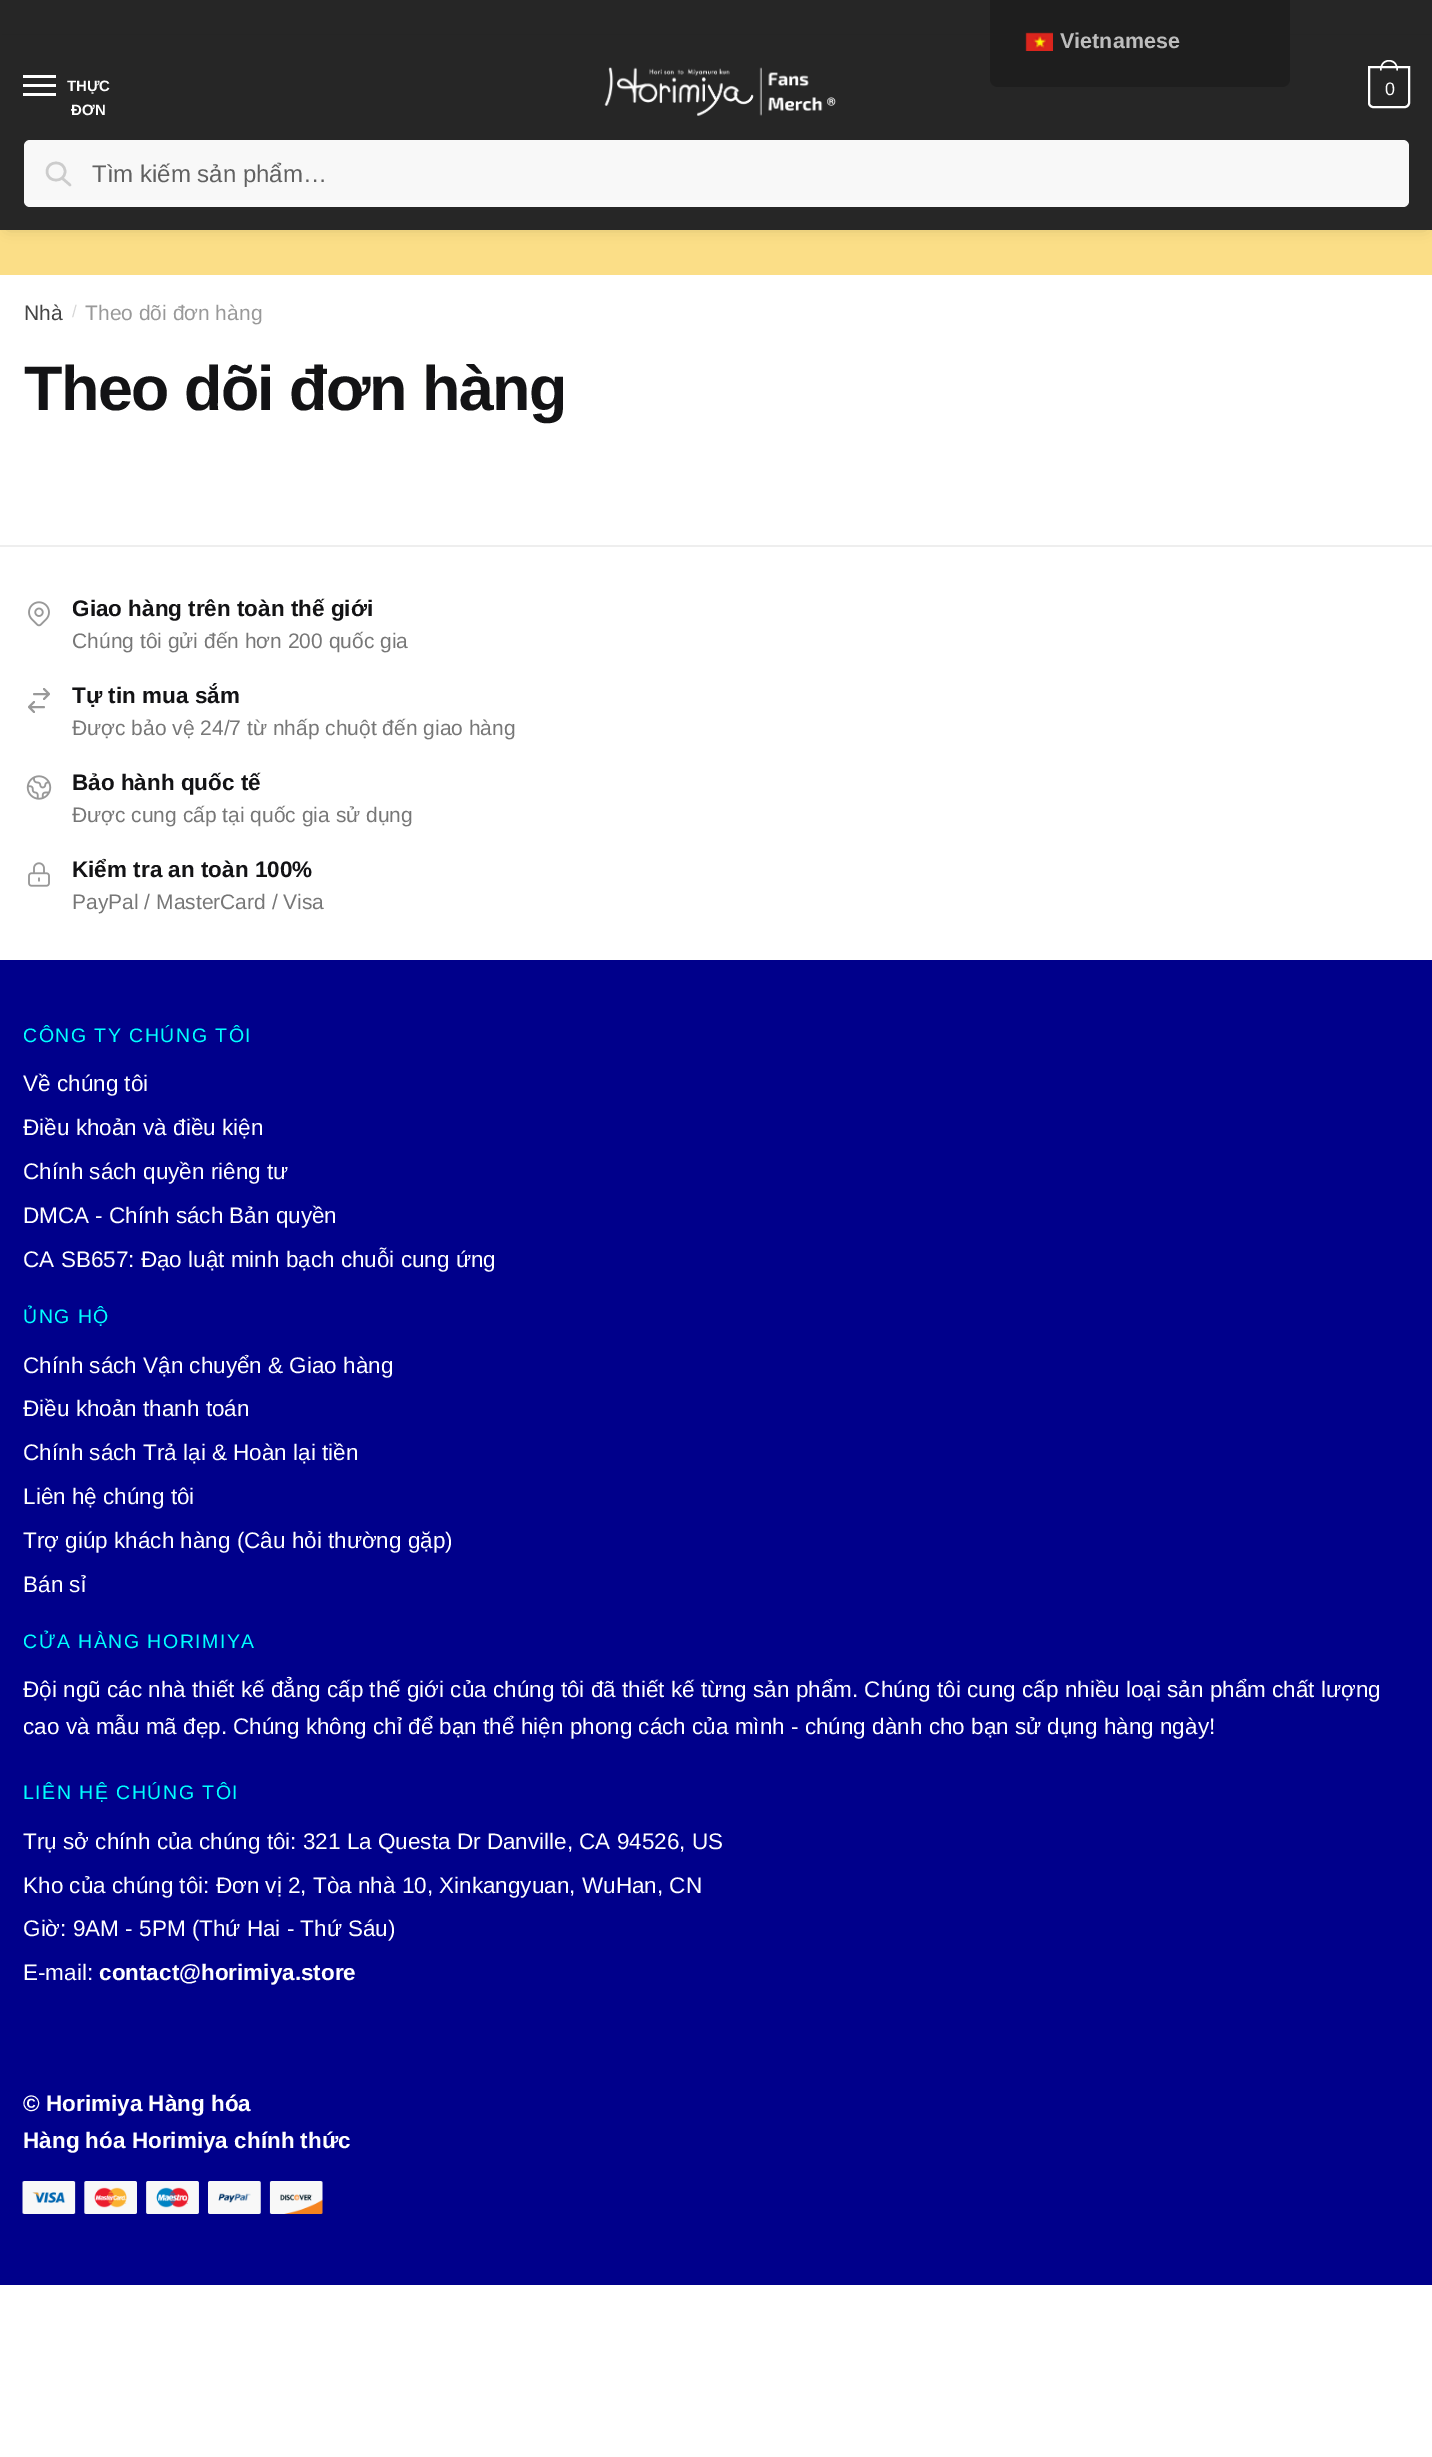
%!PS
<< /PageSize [1432 2457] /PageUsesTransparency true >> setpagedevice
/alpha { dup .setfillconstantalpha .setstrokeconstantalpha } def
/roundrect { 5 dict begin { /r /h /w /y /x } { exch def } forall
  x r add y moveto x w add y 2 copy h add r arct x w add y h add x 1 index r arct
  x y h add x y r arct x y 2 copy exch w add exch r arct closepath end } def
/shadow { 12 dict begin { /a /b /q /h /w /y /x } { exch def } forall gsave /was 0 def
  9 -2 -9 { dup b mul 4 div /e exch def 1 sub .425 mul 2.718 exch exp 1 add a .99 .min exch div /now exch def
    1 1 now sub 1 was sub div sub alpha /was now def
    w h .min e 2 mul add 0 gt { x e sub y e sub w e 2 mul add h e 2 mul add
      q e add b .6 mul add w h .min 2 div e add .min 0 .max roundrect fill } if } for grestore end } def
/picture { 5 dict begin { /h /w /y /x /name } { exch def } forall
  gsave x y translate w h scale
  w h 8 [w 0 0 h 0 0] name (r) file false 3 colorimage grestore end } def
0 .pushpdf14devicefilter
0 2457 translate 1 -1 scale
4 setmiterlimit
1 setgray
0 0 1432 2457 rectfill
0.149 setgray
0 0 1432 35 rectfill
0 setgray
0 36 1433 105 0 11 0.08 shadow
0.149 setgray
0 35 1432 105 rectfill
0.118 setgray
newpath 990 0 moveto 1290 0 lineto 1290 79 lineto 1290 83.5 1286.5 87 1282 87 curveto 998 87 lineto 993.5 87 990 83.5 990 79 curveto closepath fill
(img1.rgb) 1025 32 28 19 picture
/LiberationSans-Bold [21.5 0 0 -21.5 0 0] selectfont
0.741 setgray
1060 48 moveto (Vietnamese) show
1 setgray
23 75 33 3 rectfill
23 84 33 3 rectfill
/LiberationSans-Bold [15 0 0 -15 0 0] selectfont
67 91 moveto (THỰC) show
71 115 moveto (ĐƠN) show
23 93 33 3 rectfill
(img2.rgb) 604 67 232 49 picture
2 setlinewidth
newpath 1369 67 moveto 1409 67 lineto 1409 103 lineto 1409 105 1407 107 1405 107 curveto 1373 107 lineto 1371 107 1369 105 1369 103 curveto closepath stroke
newpath 1389 60 moveto 1395 60 1398 65 1398 70.5 curveto 1380 70.5 lineto 1380 65 1383 60 1389 60 curveto closepath 1389 61.5 moveto 1394.5 61.5 1396.5 66 1396.5 70.5 curveto 1381.5 70.5 lineto 1381.5 66 1383.5 61.5 1389 61.5 curveto closepath eofill
/LiberationSans-Regular [18 0 0 -18 0 0] selectfont
1385 95 moveto -1 0 (0) ashow
0.984 0.871 0.529 setrgbcolor
0 230 1432 45 rectfill
0 setgray
8 152 1417 75 0 7.5 0.18 shadow
0.149 setgray
0 140 1432 90 rectfill
0.973 setgray
24 140 1385 67 6 roundrect fill
0.8 setgray
2.5 setlinewidth
1 setlinecap
1 setlinejoin
newpath 70 185 moveto 62 178 lineto 65 171.5 moveto 65 183 47 183 47 171.5 curveto 47 160 65 160 65 171.5 curveto closepath stroke
/LiberationSans-Regular [24 0 0 -24 0 0] selectfont
0.38 setgray
92 182 moveto (Tìm kiếm sản phẩm…) show
/LiberationSans-Regular [21 0 0 -21 0 0] selectfont
0.267 setgray
24 320 moveto (Nhà) show
/LiberationSans-Regular [17 0 0 -17 0 0] selectfont
0.839 setgray
72 317 moveto (/) show
/LiberationSans-Regular [21 0 0 -21 0 0] selectfont
0.6 setgray
85 320 moveto (Theo dõi đơn hàng) show
/LiberationSans-Bold [62.75 0 0 -62.75 0 0] selectfont
0.075 0.075 0.082 setrgbcolor
24 410 moveto -1.5 0 (Theo dõi đơn hàng) ashow
0.933 setgray
0 545 1432 2 rectfill
/LiberationSans-Bold [22.5 0 0 -22.5 0 0] selectfont
0.075 0.075 0.082 setrgbcolor
72 616 moveto (Giao hàng trên toàn thế giới) show
(img3.rgb) 28 601 22 26 picture
/LiberationSans-Regular [21 0 0 -21 0 0] selectfont
0.467 setgray
72 648 moveto (Chúng tôi gửi đến hơn 200 quốc gia) show
/LiberationSans-Bold [22.5 0 0 -22.5 0 0] selectfont
0.075 0.075 0.082 setrgbcolor
72 703 moveto (Tự tin mua sắm) show
0.6 setgray
1.9 setlinewidth
newpath 34 694 moveto 49 694 lineto 49 694 moveto 44 689 lineto 49 694 moveto 44 699 lineto 44 707 moveto 29 707 lineto 29 707 moveto 34 712 lineto 29 707 moveto 34 702 lineto stroke
/LiberationSans-Regular [21 0 0 -21 0 0] selectfont
0.467 setgray
72 735 moveto (Được bảo vệ 24/7 từ nhấp chuột đến giao hàng) show
/LiberationSans-Bold [22.5 0 0 -22.5 0 0] selectfont
0.075 0.075 0.082 setrgbcolor
72 790 moveto (Bảo hành quốc tế) show
(img4.rgb) 26 775 26 25 picture
/LiberationSans-Regular [21 0 0 -21 0 0] selectfont
0.467 setgray
72 822 moveto (Được cung cấp tại quốc gia sử dụng) show
/LiberationSans-Bold [22.5 0 0 -22.5 0 0] selectfont
0.075 0.075 0.082 setrgbcolor
72 877 moveto (Kiểm tra an toàn 100%) show
(img5.rgb) 28 862 22 25 picture
/LiberationSans-Regular [21 0 0 -21 0 0] selectfont
0.467 setgray
72 909 moveto (PayPal / MasterCard / Visa) show
0 0 0.545 setrgbcolor
0 960 1432 1325 rectfill
/LiberationSans-Regular [19.5 0 0 -19.5 0 0] selectfont
0 1 1 setrgbcolor
23 1042 moveto 1.5 0 (CÔNG TY CHÚNG TÔI) ashow
/LiberationSans-Regular [22.5 0 0 -22.5 0 0] selectfont
1 setgray
23 1091 moveto (Về chúng tôi) show
23 1135 moveto (Điều khoản và điều kiện) show
23 1179 moveto (Chính sách quyền riêng tư) show
23 1223 moveto (DMCA - Chính sách Bản quyền) show
23 1267 moveto (CA SB657: Đạo luật minh bạch chuỗi cung ứng) show
/LiberationSans-Regular [19.5 0 0 -19.5 0 0] selectfont
0 1 1 setrgbcolor
23 1323 moveto 1.5 0 (ỦNG HỘ) ashow
/LiberationSans-Regular [22.5 0 0 -22.5 0 0] selectfont
1 setgray
23 1373 moveto (Chính sách Vận chuyển & Giao hàng) show
23 1416 moveto (Điều khoản thanh toán) show
23 1460 moveto (Chính sách Trả lại & Hoàn lại tiền) show
23 1504 moveto (Liên hệ chúng tôi) show
23 1548 moveto (Trợ giúp khách hàng \(Câu hỏi thường gặp\)) show
23 1592 moveto (Bán sỉ) show
/LiberationSans-Regular [19.5 0 0 -19.5 0 0] selectfont
0 1 1 setrgbcolor
23 1648 moveto 1.5 0 (CỬA HÀNG HORIMIYA) ashow
/LiberationSans-Regular [22.5 0 0 -22.5 0 0] selectfont
1 setgray
23 1697 moveto (Đội ngũ các nhà thiết kế đẳng cấp thế giới của chúng tôi đã thiết kế từng sản phẩm. Chúng tôi cung cấp nhiều loại sản phẩm chất lượng) show
23 1734 moveto (cao và mẫu mã đẹp. Chúng không chỉ để bạn thể hiện phong cách của mình - chúng dành cho bạn sử dụng hàng ngày!) show
/LiberationSans-Regular [19.5 0 0 -19.5 0 0] selectfont
0 1 1 setrgbcolor
23 1799 moveto 1.5 0 (LIÊN HỆ CHÚNG TÔI) ashow
/LiberationSans-Regular [22.5 0 0 -22.5 0 0] selectfont
1 setgray
23 1849 moveto (Trụ sở chính của chúng tôi: 321 La Questa Dr Danville, CA 94526, US) show
23 1893 moveto (Kho của chúng tôi: Đơn vị 2, Tòa nhà 10, Xinkangyuan, WuHan, CN) show
23 1936 moveto (Giờ: 9AM - 5PM \(Thứ Hai - Thứ Sáu\)) show
23 1980 moveto (E-mail:) show
/LiberationSans-Bold [22.5 0 0 -22.5 0 0] selectfont
99 1980 moveto (contact@horimiya.store) show
23 2111 moveto (© Horimiya Hàng hóa) show
23 2148 moveto (Hàng hóa Horimiya chính thức) show
(img6.rgb) 22 2181 301 33 picture
.poppdf14devicefilter showpage
